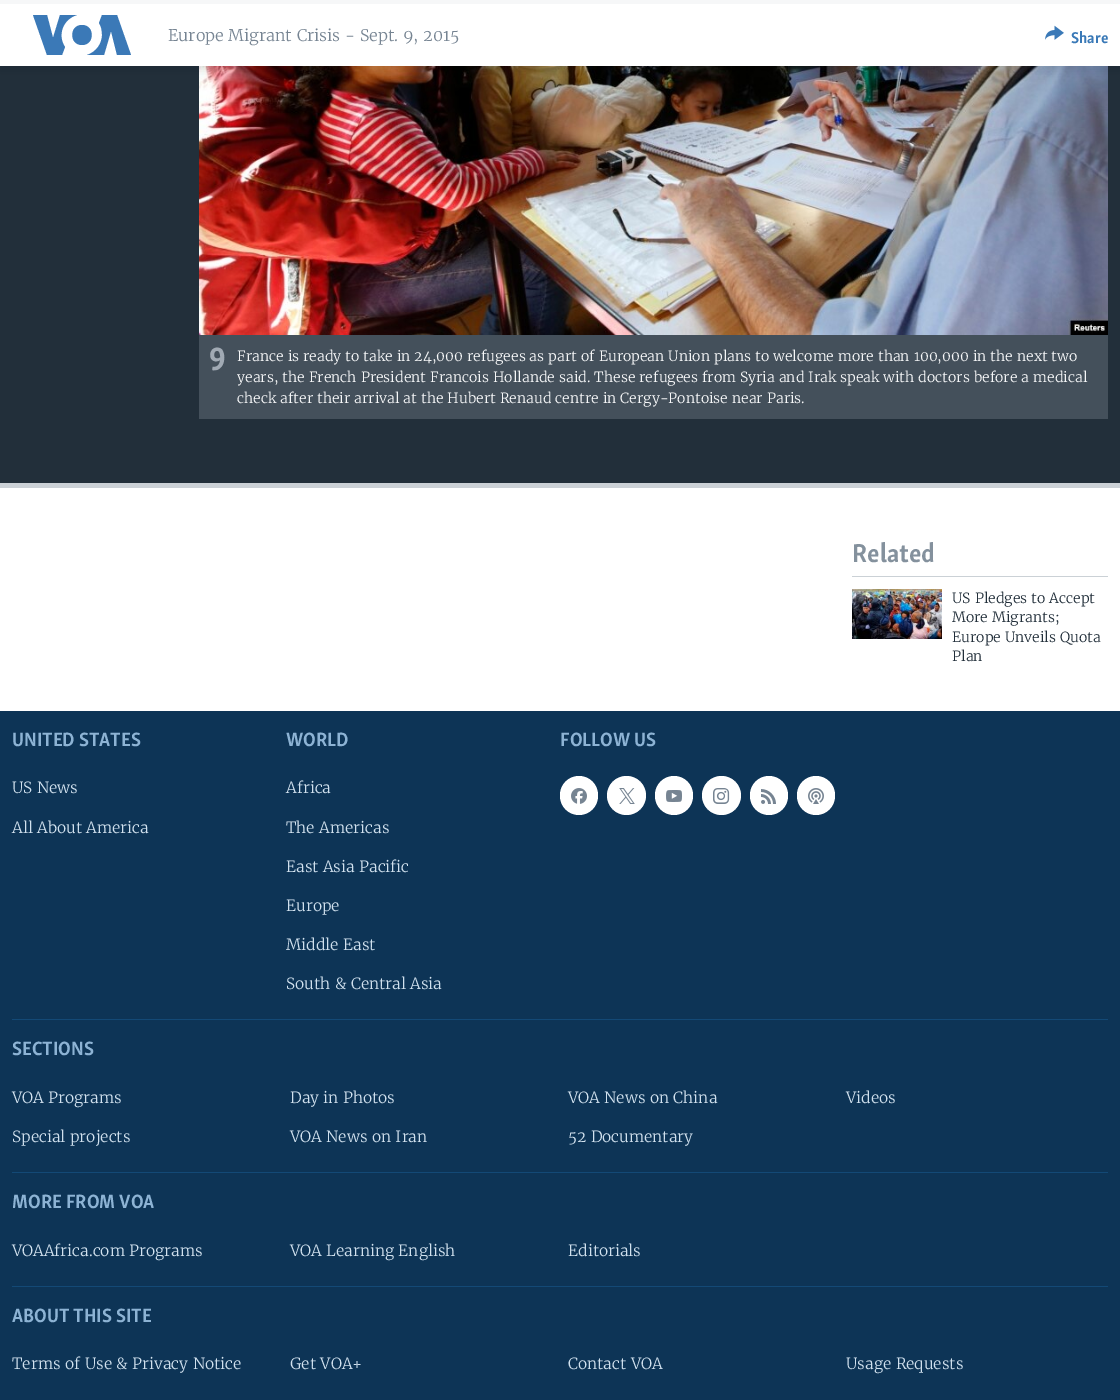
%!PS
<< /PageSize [1120 1400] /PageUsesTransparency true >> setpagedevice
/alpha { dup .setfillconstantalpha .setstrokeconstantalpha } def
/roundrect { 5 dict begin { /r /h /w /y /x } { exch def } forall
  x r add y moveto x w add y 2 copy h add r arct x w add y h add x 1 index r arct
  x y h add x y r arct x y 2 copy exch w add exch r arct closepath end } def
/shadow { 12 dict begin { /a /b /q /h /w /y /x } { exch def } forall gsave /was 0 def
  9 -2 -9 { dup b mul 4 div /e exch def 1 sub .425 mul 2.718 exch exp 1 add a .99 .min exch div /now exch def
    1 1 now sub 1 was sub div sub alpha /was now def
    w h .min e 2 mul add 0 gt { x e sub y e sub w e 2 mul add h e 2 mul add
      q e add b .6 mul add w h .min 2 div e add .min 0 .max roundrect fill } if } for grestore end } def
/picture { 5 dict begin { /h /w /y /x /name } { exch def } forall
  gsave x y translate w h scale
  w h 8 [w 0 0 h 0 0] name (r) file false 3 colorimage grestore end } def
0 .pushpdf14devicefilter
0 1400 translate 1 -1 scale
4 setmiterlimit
1 setgray
0 0 1120 1400 rectfill
0.133 0.184 0.227 setrgbcolor
0 66 1120 417 rectfill
(img2.rgb) 199 66 909 269 picture
0 setgray
0 5 1120 66 0 5 0.1 shadow
1 setgray
0 4 1120 62 rectfill
0.965 0.969 0.973 setrgbcolor
0 0 1120 4 rectfill
0.231 0.475 0.718 setrgbcolor
newpath 65 47 moveto 62 55 lineto 47 55 lineto 33 15 lineto 47 15 lineto 53 38 lineto 60 15 lineto 77 15 lineto 63 19 57 35 65 47 curveto closepath 82 25 moveto 69 25 69 45 82 45 curveto 95 45 95 25 82 25 curveto closepath 102 35 moveto 102 44 96 52 87 55 curveto 104 55 lineto 111 31 lineto 117 55 lineto 131 55 lineto 117 15 lineto 102 15 lineto 99 23 lineto 101 26 102 30 102 35 curveto closepath fill
/Merriweather-Light [16 0 0 -16 0 0] selectfont
0.463 0.518 0.573 setrgbcolor
168 41 moveto (Europe Migrant Crisis - Sept. 9, 2015) show
(img1.rgb) 1045 25 19 15 picture
/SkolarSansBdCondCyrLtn-Bold [16 0 0 -16 0 0] selectfont
0.227 0.475 0.718 setrgbcolor
1071 43 moveto (Share) show
0.796 0.82 0.839 setrgbcolor
0 483 1120 5 rectfill
0.267 0.314 0.357 setrgbcolor
199 335 909 84 rectfill
/SkolarSansBdCondCyrLtn-Bold [33 0 0 -33 0 0] selectfont
0.631 0.667 0.706 setrgbcolor
209 370 moveto (9) show
/Merriweather-Light [14 0 0 -14 0 0] selectfont
0.965 0.969 0.973 setrgbcolor
237 361 moveto (France is ready to take in 24,000 refugees as part of European Union plans to welcome more than 100,000 in the next two) show
237 382 moveto (years, the French President Francois Hollande said. These refugees from Syria and Irak speak with doctors before a medical) show
237 403 moveto (check after their arrival at the Hubert Renaud centre in Cergy-Pontoise near Paris.) show
0.796 0.82 0.839 setrgbcolor
852 576 256 1 rectfill
/SkolarSansBdCondCyrLtn-Bold [26.5 0 0 -26.5 0 0] selectfont
0.518 0.569 0.616 setrgbcolor
852 562 moveto (Related) show
(img3.rgb) 852 589 90 50 picture
/Merriweather-Light [14 0 0 -14 0 0] selectfont
0.133 0.184 0.227 setrgbcolor
952 603 moveto (US Pledges to Accept) show
952 622 moveto (More Migrants;) show
952 642 moveto (Europe Unveils Quota) show
952 661 moveto (Plan) show
0.051 0.204 0.337 setrgbcolor
0 711 1120 689 rectfill
/SkolarSansBdCondCyrLtn-Bold [19.75 0 0 -19.75 0 0] selectfont
0.553 0.702 0.831 setrgbcolor
12 746 moveto (UNITED STATES) show
/Merriweather-Light [15.4 0 0 -15.4 0 0] selectfont
0.82 0.882 0.933 setrgbcolor
12 793 moveto (US News) show
12 833 moveto (All About America) show
/SkolarSansBdCondCyrLtn-Bold [19.75 0 0 -19.75 0 0] selectfont
0.553 0.702 0.831 setrgbcolor
286 746 moveto (WORLD) show
/Merriweather-Light [15.4 0 0 -15.4 0 0] selectfont
0.82 0.882 0.933 setrgbcolor
286 793 moveto (Africa) show
286 833 moveto (The Americas) show
286 872 moveto (East Asia Pacific) show
286 911 moveto (Europe) show
286 950 moveto (Middle East) show
286 989 moveto (South & Central Asia) show
/SkolarSansBdCondCyrLtn-Bold [19.75 0 0 -19.75 0 0] selectfont
0.553 0.702 0.831 setrgbcolor
560 746 moveto (FOLLOW US) show
1 setgray
560 776 38 39 19 roundrect fill
(img4.rgb) 571 788 16 16 picture
newpath 626.5 795.5 19.5 0 360 arc closepath fill
(img5.rgb) 619 788 16 16 picture
655 776 38 39 19 roundrect fill
(img6.rgb) 666 790 16 12 picture
newpath 721.5 795.5 19.5 0 360 arc closepath fill
(img7.rgb) 713 788 17 16 picture
750 776 38 39 19 roundrect fill
(img8.rgb) 761 789 15 15 picture
797 776 38 39 19 roundrect fill
(img9.rgb) 808 788 16 16 picture
0.075 0.286 0.463 setrgbcolor
12 1019 1096 1 rectfill
0.553 0.702 0.831 setrgbcolor
12 1055 moveto (SECTIONS) show
/Merriweather-Light [15.4 0 0 -15.4 0 0] selectfont
0.82 0.882 0.933 setrgbcolor
12 1103 moveto (VOA Programs) show
290 1103 moveto (Day in Photos) show
568 1103 moveto (VOA News on China) show
846 1103 moveto (Videos) show
12 1142 moveto (Special projects) show
290 1142 moveto (VOA News on Iran) show
568 1142 moveto (52 Documentary) show
0.075 0.286 0.463 setrgbcolor
12 1172 1096 1 rectfill
/SkolarSansBdCondCyrLtn-Bold [19.75 0 0 -19.75 0 0] selectfont
0.553 0.702 0.831 setrgbcolor
12 1208 moveto (MORE FROM VOA) show
/Merriweather-Light [15.4 0 0 -15.4 0 0] selectfont
0.82 0.882 0.933 setrgbcolor
12 1256 moveto (VOAAfrica.com Programs) show
290 1256 moveto (VOA Learning English) show
568 1256 moveto (Editorials) show
0.075 0.286 0.463 setrgbcolor
12 1286 1096 1 rectfill
/SkolarSansBdCondCyrLtn-Bold [19.75 0 0 -19.75 0 0] selectfont
0.553 0.702 0.831 setrgbcolor
12 1322 moveto (ABOUT THIS SITE) show
/Merriweather-Light [15.4 0 0 -15.4 0 0] selectfont
0.82 0.882 0.933 setrgbcolor
12 1369 moveto (Terms of Use & Privacy Notice) show
290 1369 moveto (Get VOA+) show
568 1369 moveto (Contact VOA) show
846 1369 moveto (Usage Requests) show
.poppdf14devicefilter showpage
